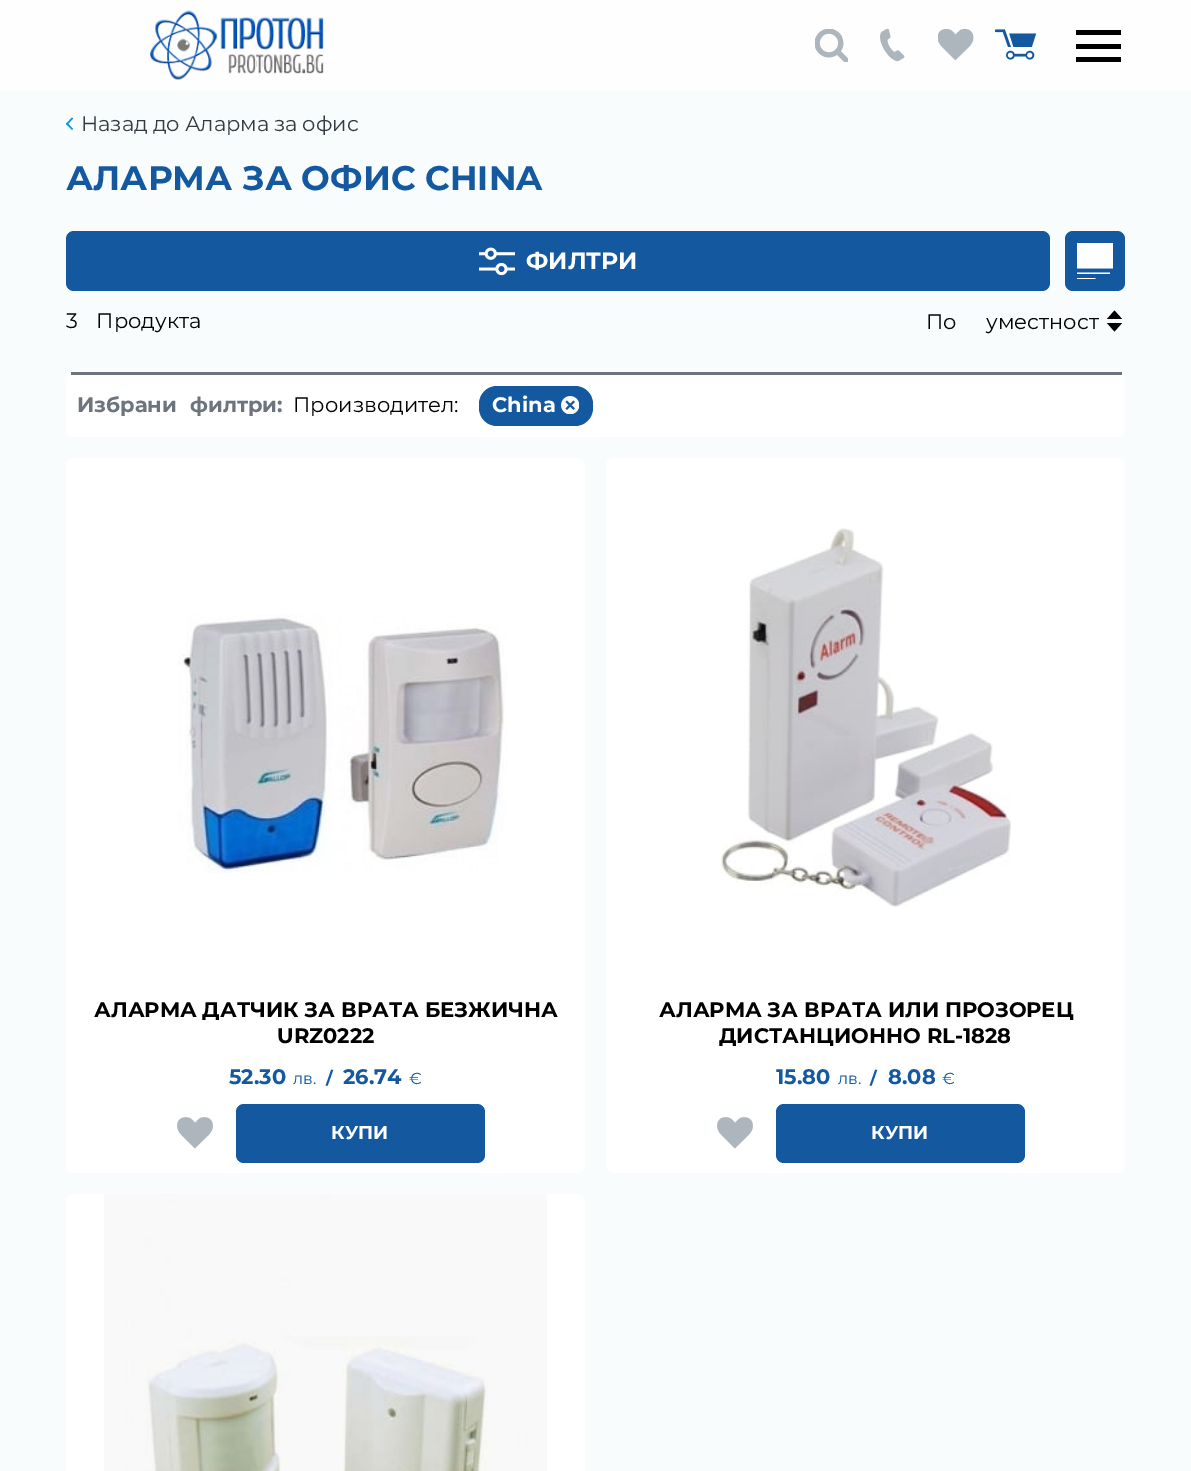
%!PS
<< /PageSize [1191 1471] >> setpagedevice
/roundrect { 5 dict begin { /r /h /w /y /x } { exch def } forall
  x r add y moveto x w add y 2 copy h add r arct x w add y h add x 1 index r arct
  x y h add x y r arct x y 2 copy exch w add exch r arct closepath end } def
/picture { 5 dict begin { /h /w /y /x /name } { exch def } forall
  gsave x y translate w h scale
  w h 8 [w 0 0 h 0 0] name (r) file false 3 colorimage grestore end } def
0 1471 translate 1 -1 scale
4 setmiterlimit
0.973 0.988 0.988 setrgbcolor
0 0 1191 1471 rectfill
0.996 setgray
0 0 1191 90 rectfill
(img1.rgb) 150 10 174 70 picture
(img2.rgb) 815 29 33 33 picture
(img3.rgb) 880 29 25 33 picture
(img4.rgb) 938 28 36 33 picture
(img5.rgb) 995 29 42 31 picture
0 setgray
1076 44 45 5 rectfill
1076 30 45 5 rectfill
1076 57 45 5 rectfill
0.031 0.58 0.847 setrgbcolor
newpath 73 129 moveto 72 130 lineto 66 124 lineto 67 122.5 lineto closepath fill
newpath 73 118.5 moveto 67 125 lineto 66 124 lineto 72 117.5 lineto closepath fill
/Montserrat-Regular [21 0 0 -21 0 0] selectfont
0.204 0.227 0.251 setrgbcolor
81 131 moveto -0.5 0 32 (Назад до Аларма за офис) widthshow
/Montserrat-Bold [34.1 0 0 -34.1 0 0] selectfont
0.078 0.349 0.624 setrgbcolor
66 190 moveto (АЛАРМА ЗА ОФИС CHINA) show
66 231 984 60 8 roundrect fill
(img6.rgb) 479 247 36 29 picture
/Montserrat-Bold [23.5 0 0 -23.5 0 0] selectfont
1 setgray
526 269 moveto (ФИЛТРИ) show
0.078 0.349 0.624 setrgbcolor
1065 231 60 60 8 roundrect fill
gsave
1077 243 36 36 rectclip
1 setgray
newpath 1114 268.5 moveto 1077 268.5 lineto 1077 243 lineto 1114 243 lineto closepath 1110 272.5 moveto 1077 272.5 lineto 1077 274 lineto 1110 274 lineto closepath 1095.5 278 moveto 1077 278 lineto 1077 280 lineto 1095.5 280 lineto closepath fill
grestore
/Montserrat-Regular [21 0 0 -21 0 0] selectfont
0 setgray
66 328 moveto 13 0 32 (3 Продукта) widthshow
926 329 moveto 24 0 32 (По уместност) widthshow
newpath 1122 319 moveto 1107 319 lineto 1114.5 310.5 lineto closepath 1107 323 moveto 1122 323 lineto 1114.5 331.5 lineto closepath fill
1 setgray
66 372 1059 65 8 roundrect fill
0.424 0.459 0.49 setrgbcolor
71 372 1051 3 rectfill
/Montserrat-Bold [21 0 0 -21 0 0] selectfont
77 412 moveto 7 0 32 (Избрани филтри:) widthshow
/Montserrat-Regular [21 0 0 -21 0 0] selectfont
0 setgray
293 412 moveto (Производител:) show
0.078 0.349 0.624 setrgbcolor
479 386 114 40 18 roundrect fill
/Montserrat-Bold [21 0 0 -21 0 0] selectfont
1 setgray
492 412 moveto (China) show
(img7.rgb) 561 396 18 18 picture
66 458 519 715 8 roundrect fill
(img8.rgb) 178 614 329 259 picture
0 setgray
94 1017 moveto (АЛАРМА ДАТЧИК ЗА ВРАТА БЕЗЖИЧНА) show
277 1043 moveto (URZ0222) show
0.078 0.349 0.624 setrgbcolor
229 1084 moveto (52.30) show
/Montserrat-Regular [16 0 0 -16 0 0] selectfont
293 1084 moveto (лв.) show
/Montserrat-Bold [17 0 0 -17 0 0] selectfont
326 1084 moveto (/) show
/Montserrat-Bold [21 0 0 -21 0 0] selectfont
343 1084 moveto (26.74) show
/Montserrat-Regular [16 0 0 -16 0 0] selectfont
409 1084 moveto (€) show
(img9.rgb) 177 1117 36 32 picture
236 1104 249 59 8 roundrect fill
/Montserrat-Bold [18.5 0 0 -18.5 0 0] selectfont
1 setgray
331 1139 moveto (КУПИ) show
606 458 519 715 8 roundrect fill
(img10.rgb) 718 528 293 379 picture
/Montserrat-Bold [21 0 0 -21 0 0] selectfont
0 setgray
659 1017 moveto (АЛАРМА ЗА ВРАТА ИЛИ ПРОЗОРЕЦ) show
719 1043 moveto (ДИСТАНЦИОННО RL-1828) show
0.078 0.349 0.624 setrgbcolor
776 1084 moveto (15.80) show
/Montserrat-Regular [16 0 0 -16 0 0] selectfont
838 1084 moveto (лв.) show
/Montserrat-Bold [17 0 0 -17 0 0] selectfont
870 1084 moveto (/) show
/Montserrat-Bold [21 0 0 -21 0 0] selectfont
888 1084 moveto (8.08) show
/Montserrat-Regular [16 0 0 -16 0 0] selectfont
942 1084 moveto (€) show
(img9.rgb) 717 1117 36 32 picture
776 1104 249 59 8 roundrect fill
/Montserrat-Bold [18.5 0 0 -18.5 0 0] selectfont
1 setgray
871 1139 moveto (КУПИ) show
66 1194 519 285 8 roundrect fill
(img11.rgb) 104 1194 443 277 picture
showpage
